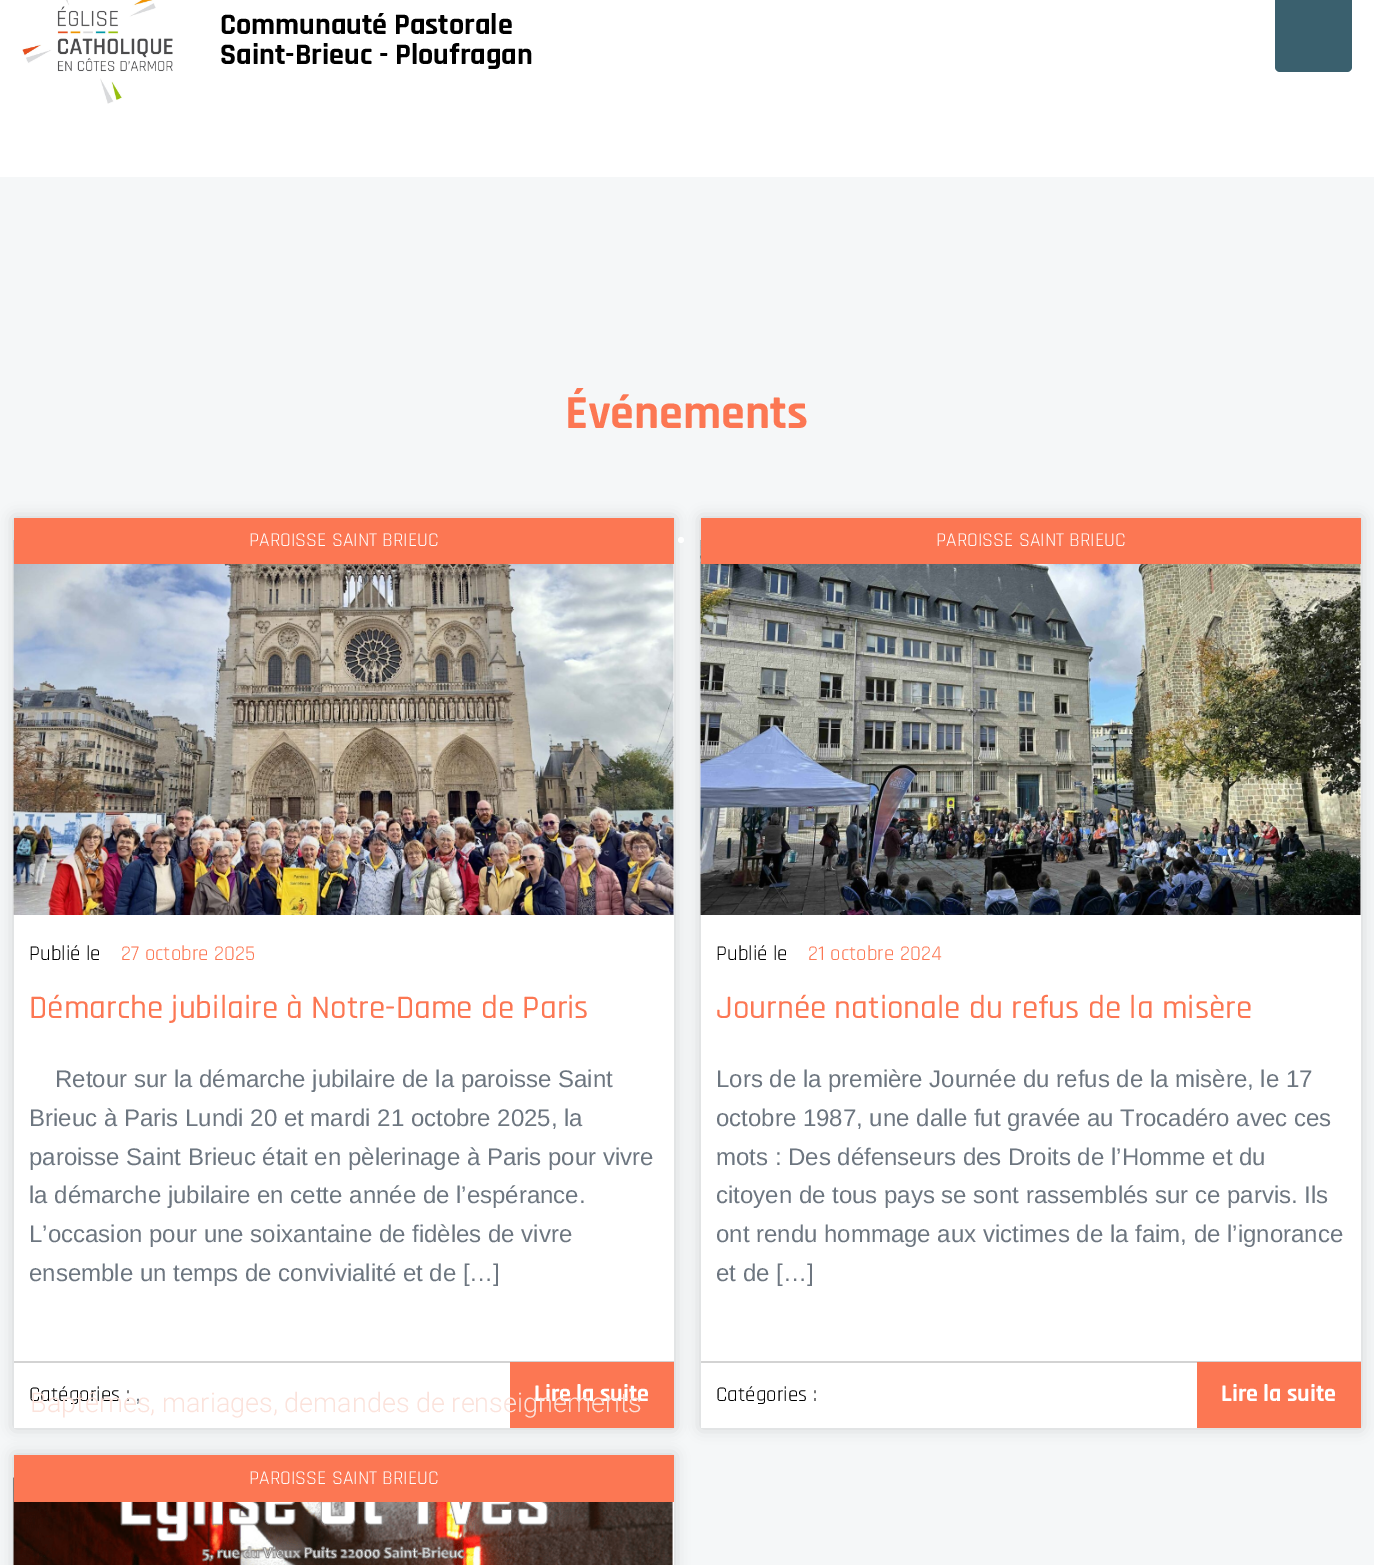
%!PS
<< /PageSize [1374 1565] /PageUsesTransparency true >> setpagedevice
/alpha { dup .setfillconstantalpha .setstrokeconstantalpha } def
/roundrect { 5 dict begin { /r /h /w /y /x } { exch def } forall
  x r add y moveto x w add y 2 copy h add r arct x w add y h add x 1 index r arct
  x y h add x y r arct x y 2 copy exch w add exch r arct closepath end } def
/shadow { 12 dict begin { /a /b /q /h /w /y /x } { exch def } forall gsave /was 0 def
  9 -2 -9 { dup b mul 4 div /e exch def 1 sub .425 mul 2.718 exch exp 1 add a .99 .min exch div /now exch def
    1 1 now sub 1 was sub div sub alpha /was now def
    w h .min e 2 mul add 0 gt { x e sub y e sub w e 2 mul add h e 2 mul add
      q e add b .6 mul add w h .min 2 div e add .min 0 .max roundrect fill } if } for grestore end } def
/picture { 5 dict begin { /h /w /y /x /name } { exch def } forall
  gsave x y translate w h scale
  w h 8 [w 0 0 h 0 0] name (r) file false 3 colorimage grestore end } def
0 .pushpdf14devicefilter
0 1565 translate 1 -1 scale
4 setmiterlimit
1 setgray
0 0 1374 1565 rectfill
(img1.rgb) 22 0 151 104 picture
/Rajdhani-Bold [30 0 0 -30 0 0] selectfont
0 setgray
220 34 moveto (Communauté Pastorale) show
220 64 moveto (Saint-Brieuc - Ploufragan) show
0.227 0.376 0.431 setrgbcolor
1275 -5 77 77 5 roundrect fill
0.961 0.969 0.973 setrgbcolor
0 177 1374 1388 rectfill
/Rajdhani-Bold [48 0 0 -48 0 0] selectfont
0.988 0.467 0.325 setrgbcolor
565 428 moveto (Événements) show
0 setgray
14 518 660 910 0 7.5 0.15 shadow
1 setgray
14 564 660 864 rectfill
(img2.rgb) 13 540 661 375 picture
0.988 0.467 0.325 setrgbcolor
14 518 660 46 rectfill
/Rajdhani-Regular [19.5 0 0 -19.5 0 0] selectfont
1 setgray
249 546 moveto (PAROISSE SAINT BRIEUC) show
/Rajdhani-Regular [21 0 0 -21 0 0] selectfont
0 setgray
29 960 moveto (Publié le) show
0.988 0.467 0.325 setrgbcolor
121 960 moveto (27 octobre 2025) show
/Rajdhani-Medium [33 0 0 -33 0 0] selectfont
29 1018 moveto (Démarche jubilaire à Notre-Dame de Paris) show
/LiberationSans-Regular [24 0 0 -24 0 0] selectfont
0.427 0.463 0.502 setrgbcolor
55 1087 moveto (Retour sur la démarche jubilaire de la paroisse Saint) show
29 1126 moveto (Brieuc à Paris Lundi 20 et mardi 21 octobre 2025, la) show
29 1165 moveto (paroisse Saint Brieuc était en pèlerinage à Paris pour vivre) show
29 1203 moveto (la démarche jubilaire en cette année de l’espérance.) show
29 1242 moveto (L’occasion pour une soixantaine de fidèles de vivre) show
29 1281 moveto (ensemble un temps de convivialité et de […]) show
0.827 setgray
14 1361 660 2 rectfill
/Rajdhani-Regular [21 0 0 -21 0 0] selectfont
0 setgray
29 1401 moveto (Catégories :) show
/LiberationSans-Regular [21 0 0 -21 0 0] selectfont
0.427 0.463 0.502 setrgbcolor
135 1401 moveto (,) show
0.988 0.467 0.325 setrgbcolor
510 1362 164 66 rectfill
/Rajdhani-Bold [24 0 0 -24 0 0] selectfont
1 setgray
534 1401 moveto (Lire la suite) show
0 setgray
701 518 660 910 0 7.5 0.15 shadow
1 setgray
701 564 660 864 rectfill
(img3.rgb) 700 540 661 375 picture
0.988 0.467 0.325 setrgbcolor
701 518 660 46 rectfill
1 setgray
newpath 681 540 3 0 360 arc closepath fill
/Rajdhani-Regular [19.5 0 0 -19.5 0 0] selectfont
936 546 moveto (PAROISSE SAINT BRIEUC) show
/Rajdhani-Regular [21 0 0 -21 0 0] selectfont
0 setgray
716 960 moveto (Publié le) show
0.988 0.467 0.325 setrgbcolor
808 960 moveto (21 octobre 2024) show
/Rajdhani-Medium [33 0 0 -33 0 0] selectfont
716 1018 moveto (Journée nationale du refus de la misère) show
/LiberationSans-Regular [24 0 0 -24 0 0] selectfont
0.427 0.463 0.502 setrgbcolor
716 1087 moveto (Lors de la première Journée du refus de la misère, le 17) show
716 1126 moveto (octobre 1987, une dalle fut gravée au Trocadéro avec ces) show
716 1165 moveto (mots : Des défenseurs des Droits de l’Homme et du) show
716 1203 moveto (citoyen de tous pays se sont rassemblés sur ce parvis. Ils) show
716 1242 moveto (ont rendu hommage aux victimes de la faim, de l’ignorance) show
716 1281 moveto (et de […]) show
0.827 setgray
701 1361 660 2 rectfill
/Rajdhani-Regular [21 0 0 -21 0 0] selectfont
0 setgray
716 1401 moveto (Catégories :) show
0.988 0.467 0.325 setrgbcolor
1197 1362 164 66 rectfill
/Rajdhani-Bold [24 0 0 -24 0 0] selectfont
1 setgray
1221 1401 moveto (Lire la suite) show
0 setgray
14 1455 660 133 0 7.5 0.15 shadow
1 setgray
673 1502 1 63 rectfill
(img4.rgb) 13 1477 660 88 picture
0.988 0.467 0.325 setrgbcolor
14 1455 660 47 rectfill
/Rajdhani-Regular [19.5 0 0 -19.5 0 0] selectfont
1 setgray
249 1484 moveto (PAROISSE SAINT BRIEUC) show
/Roboto-Light [27 0 0 -27 0 0] selectfont
0.984 0.886 0.859 setrgbcolor
30 1412 moveto (Baptêmes, mariages, demandes de renseignements) show
.poppdf14devicefilter showpage
